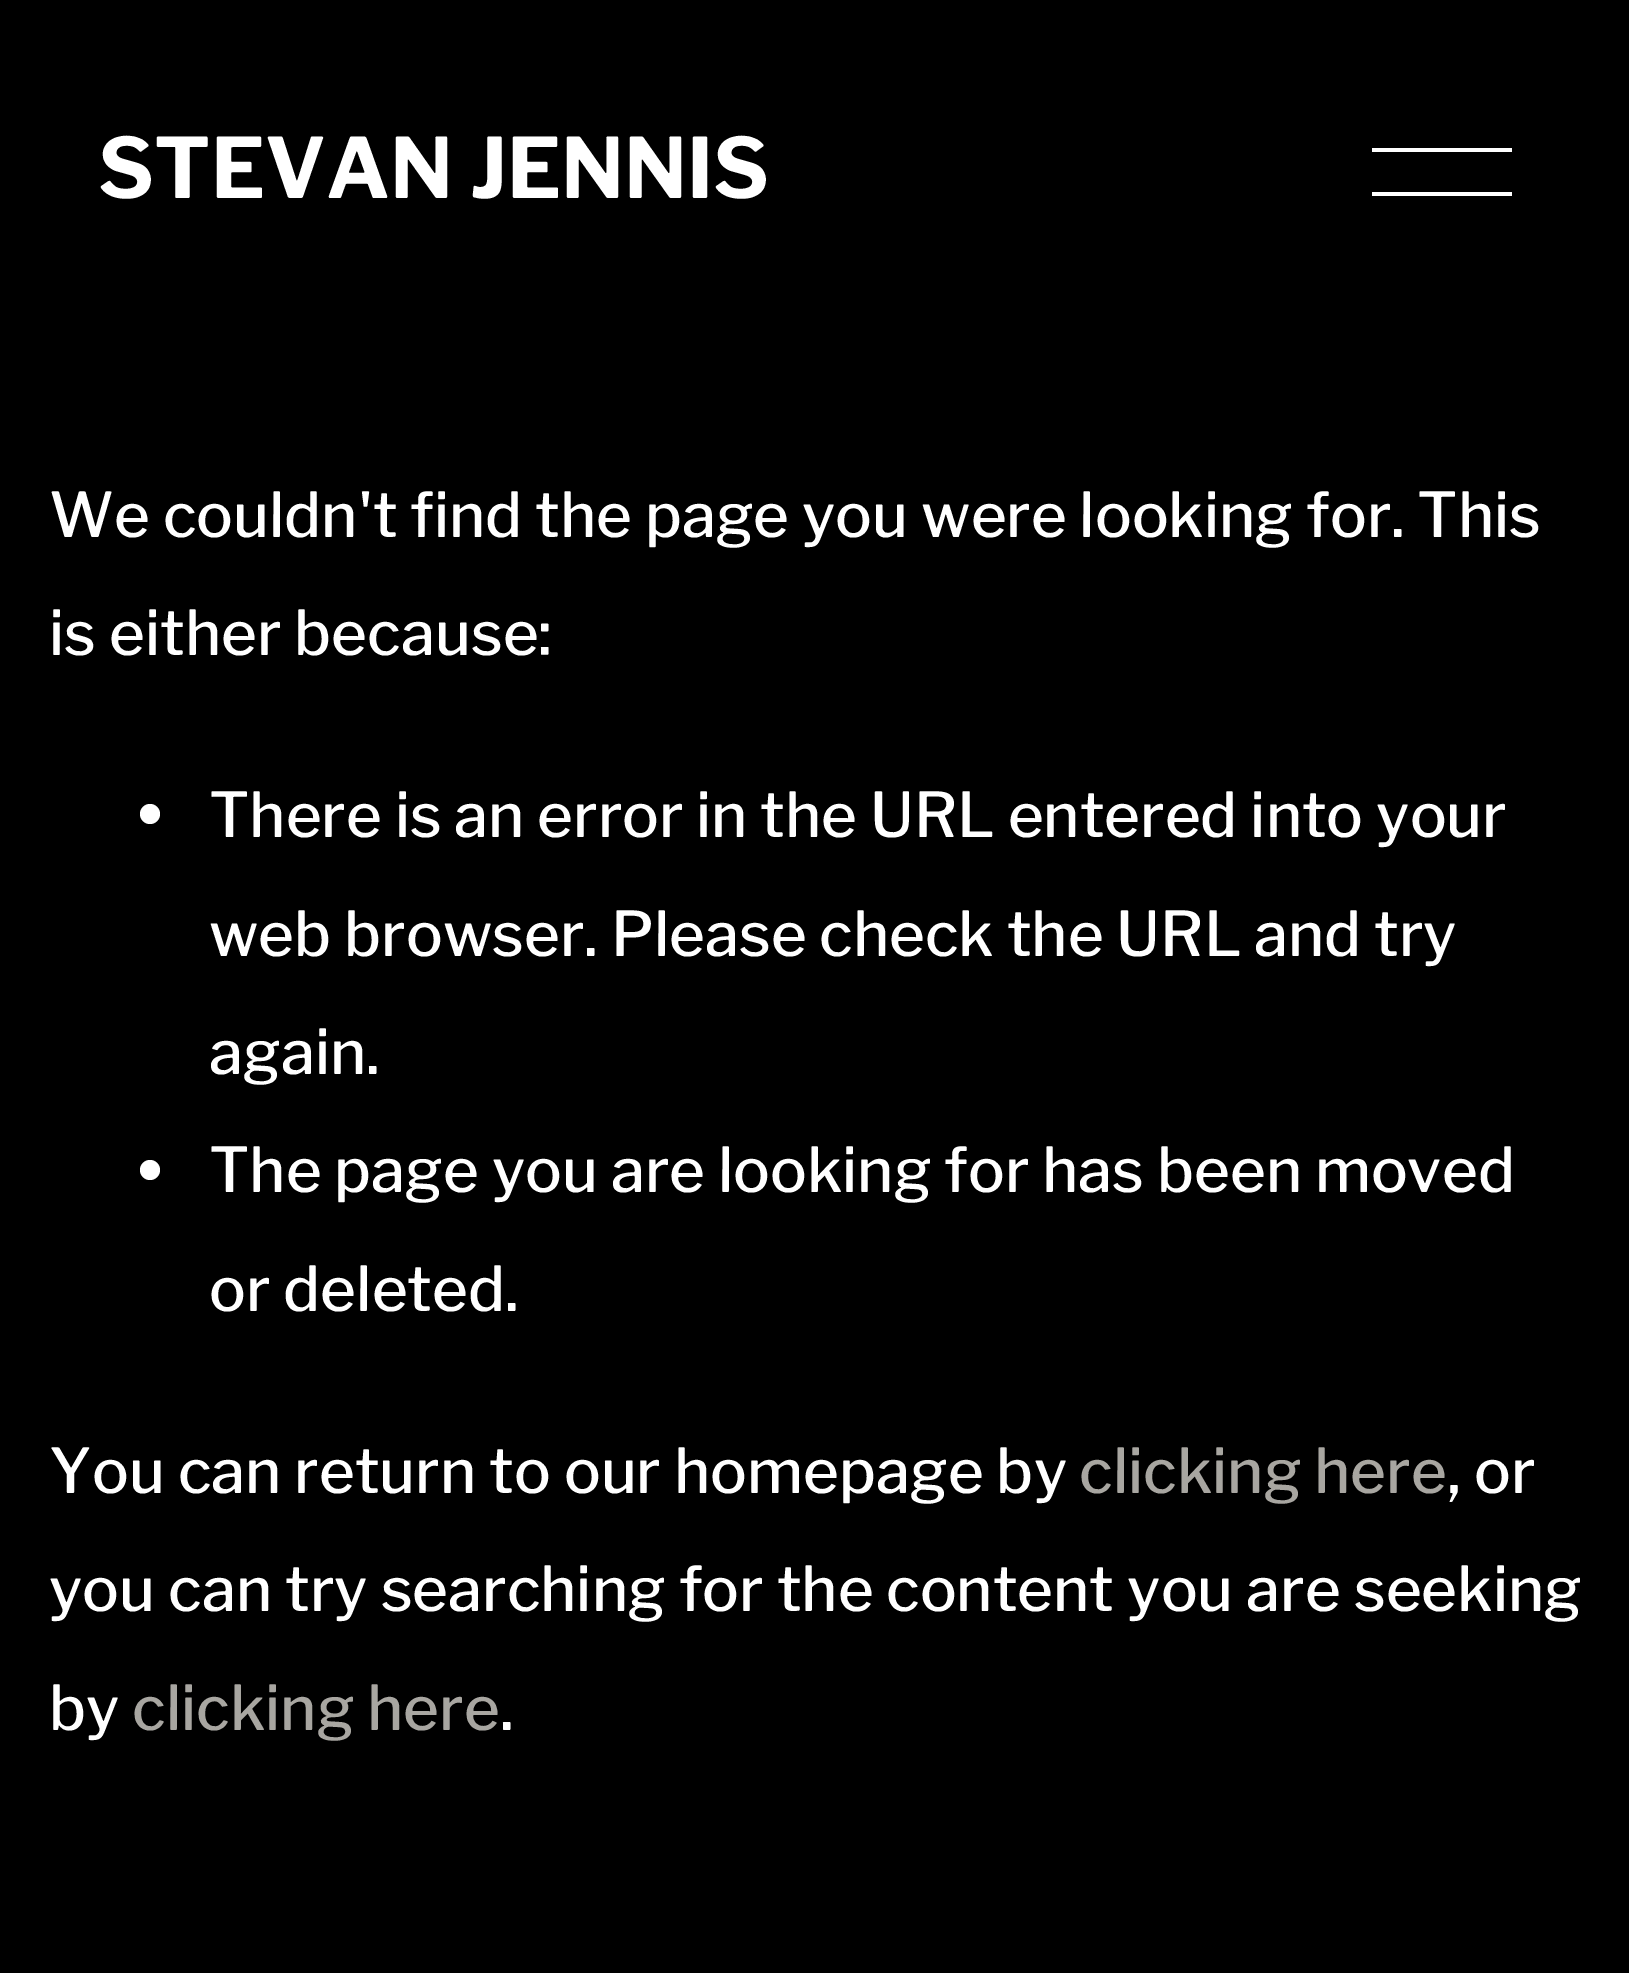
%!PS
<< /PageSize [1629 1973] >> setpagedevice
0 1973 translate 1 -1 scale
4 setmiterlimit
0 setgray
0 0 1629 1973 rectfill
/LibreFranklin-Bold [83 0 0 -83 0 0] selectfont
1 setgray
98 198 moveto (STEVAN JENNIS) show
1372 148 140 4 rectfill
1372 192 140 4 rectfill
/LibreFranklin-Medium [61.6 0 0 -61.6 0 0] selectfont
49 537 moveto -0.25 0 32 (We couldn't find the page you were looking for. This) widthshow
49 655 moveto (is either because:) show
newpath 150 814 10 0 360 arc closepath fill
209 837 moveto -0.25 0 32 (There is an error in the URL entered into your) widthshow
209 956 moveto -0.25 0 32 (web browser. Please check the URL and try) widthshow
209 1074 moveto (again.) show
newpath 150 1170 10 0 360 arc closepath fill
209 1192 moveto -0.25 0 32 (The page you are looking for has been moved) widthshow
209 1311 moveto (or deleted.) show
49 1493 moveto (You can return to our homepage by) show
0.659 0.651 0.631 setrgbcolor
1079 1493 moveto (clicking here) show
1 setgray
1447 1493 moveto (, or) show
49 1611 moveto (you can try searching for the) show
886 1611 moveto (content you are seeking) show
49 1730 moveto (by) show
0.659 0.651 0.631 setrgbcolor
132 1730 moveto (clicking here) show
1 setgray
500 1730 moveto (.) show
showpage
